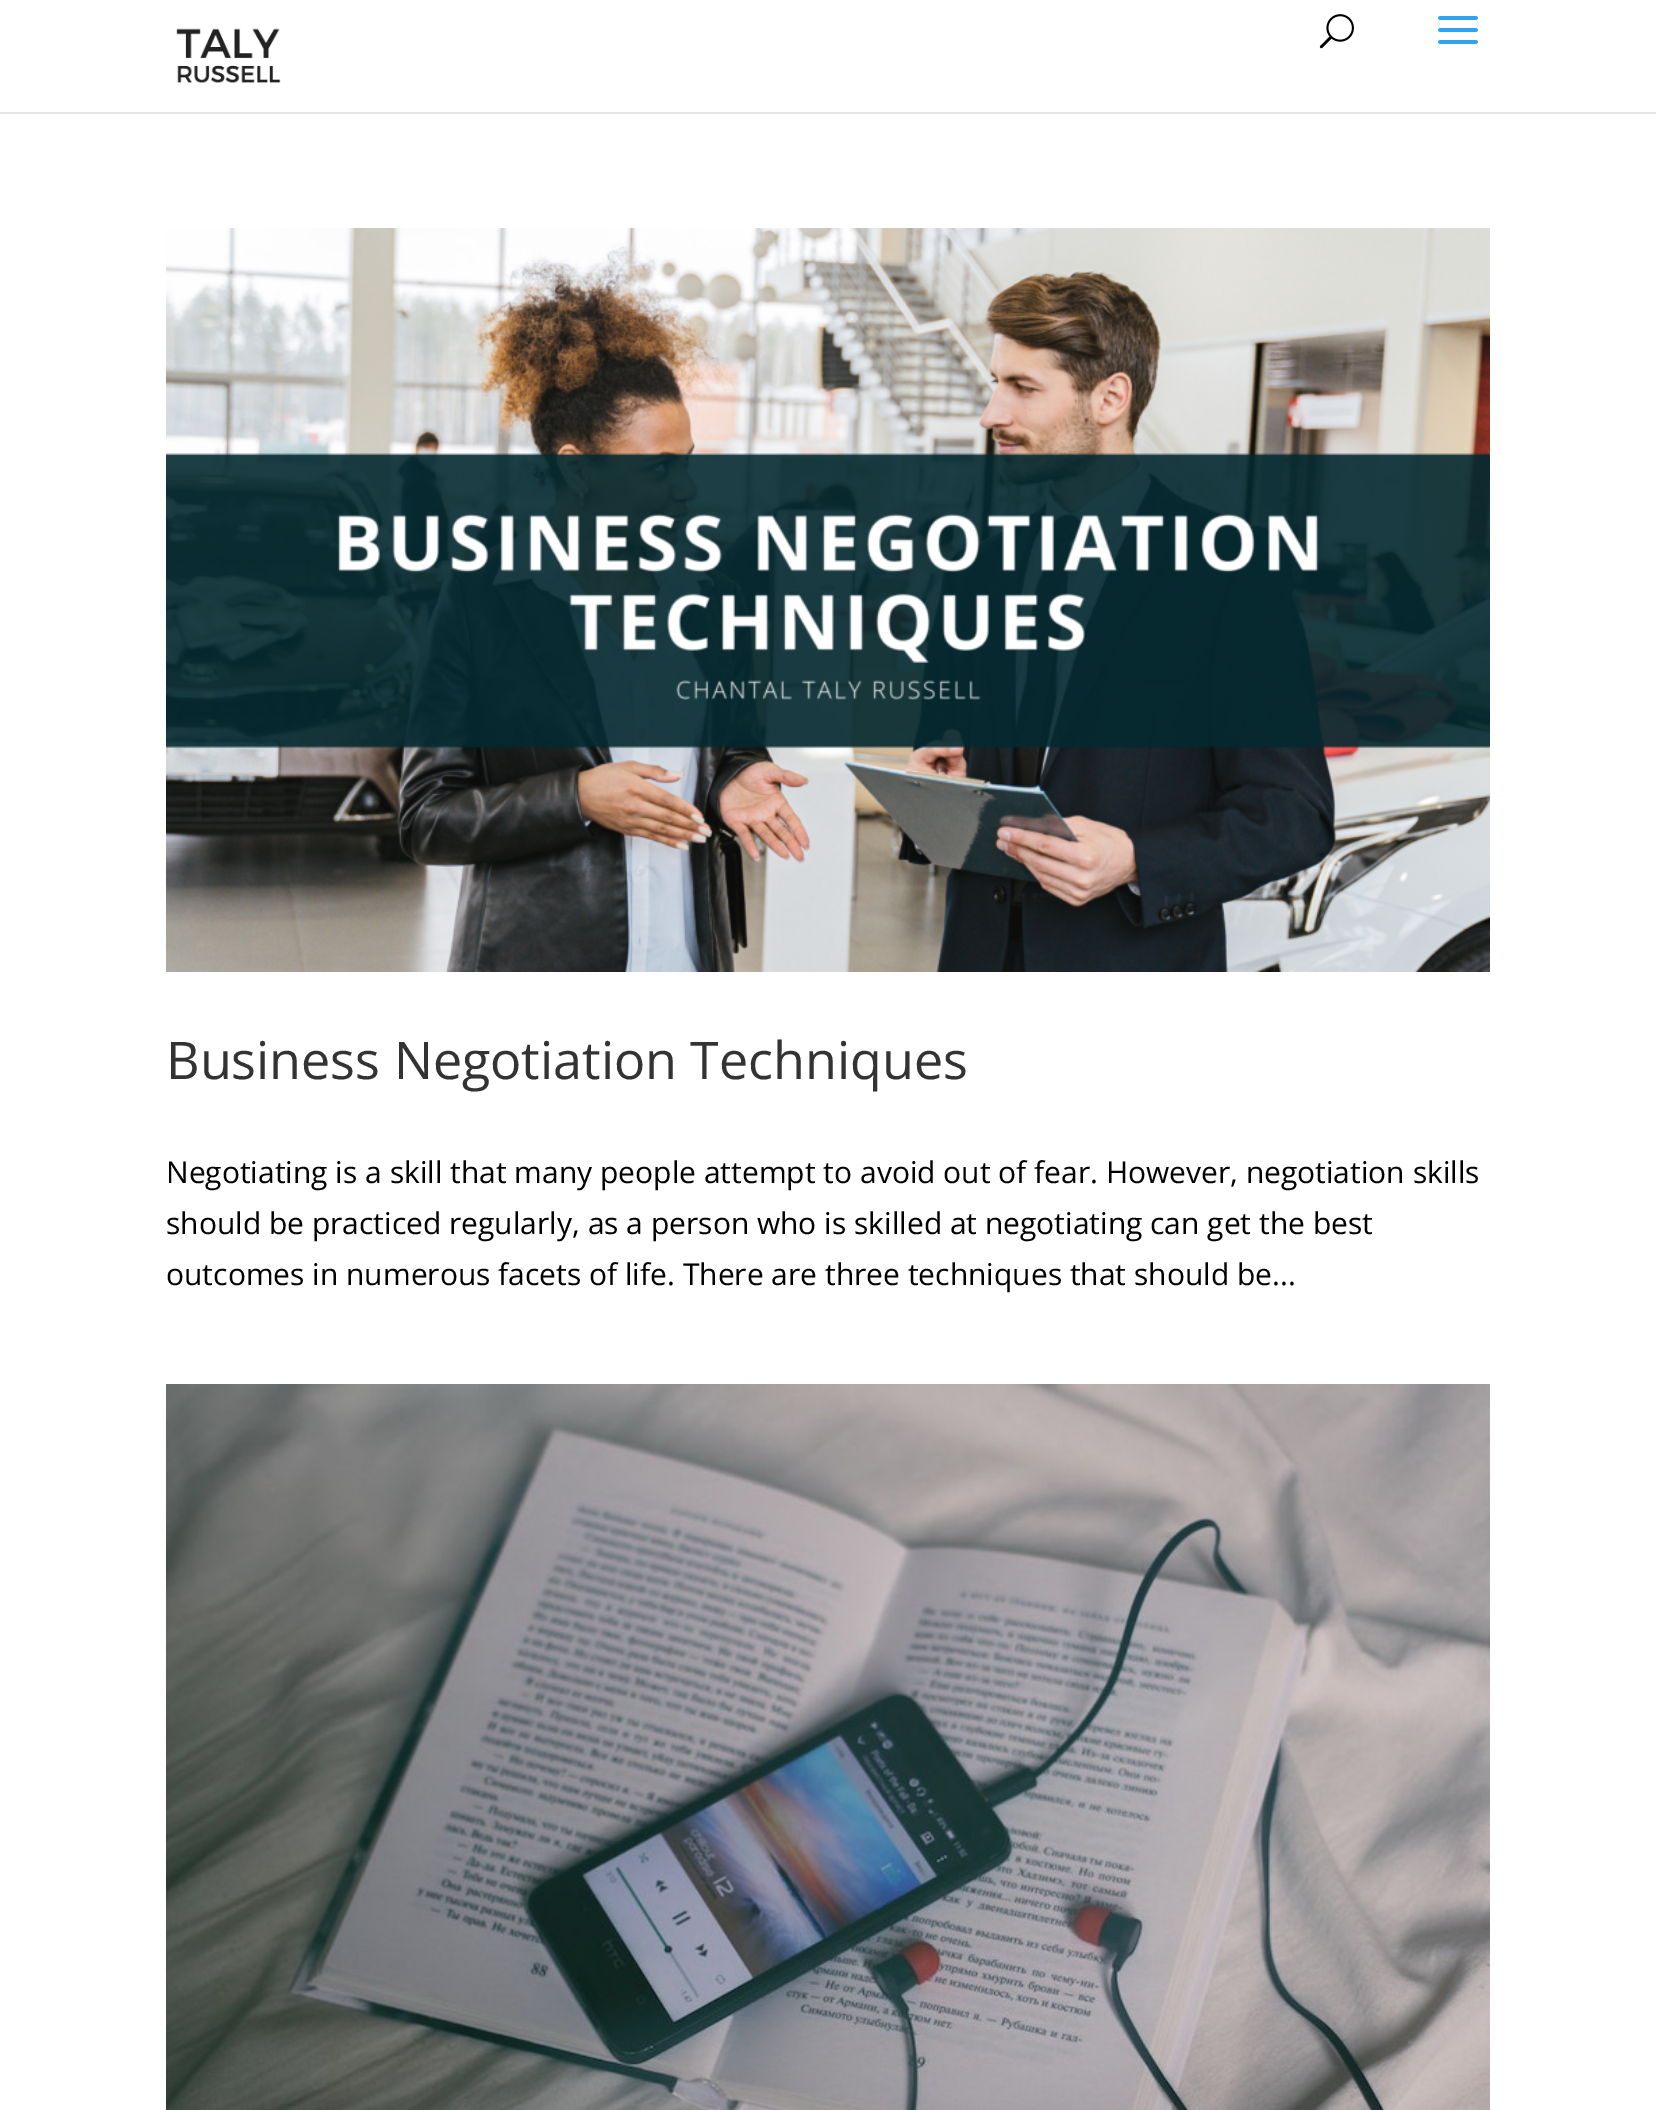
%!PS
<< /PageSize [1656 2110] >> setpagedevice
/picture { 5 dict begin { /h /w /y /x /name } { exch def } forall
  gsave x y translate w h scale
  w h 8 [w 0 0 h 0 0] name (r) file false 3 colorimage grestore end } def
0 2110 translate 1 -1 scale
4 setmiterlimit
1 setgray
0 0 1656 2110 rectfill
0.902 setgray
0 112 1656 2 rectfill
(img1.rgb) 176 28 105 55 picture
(img2.rgb) 1319 14 35 35 picture
(img3.rgb) 1438 16 40 28 picture
(img4.rgb) 166 228 1324 744 picture
/OpenSans-Regular [52 0 0 -52 0 0] selectfont
0.2 setgray
166 1079 moveto (Business Negotiation Techniques) show
/OpenSans-Regular [30 0 0 -30 0 0] selectfont
0 setgray
166 1183 moveto (Negotiating is a skill that many people attempt to avoid out of fear. However, negotiation skills) show
166 1234 moveto (should be practiced regularly, as a person who is skilled at negotiating can get the best) show
166 1285 moveto (outcomes in numerous facets of life. There are three techniques that should be...) show
(img5.rgb) 166 1384 1324 726 picture
showpage
